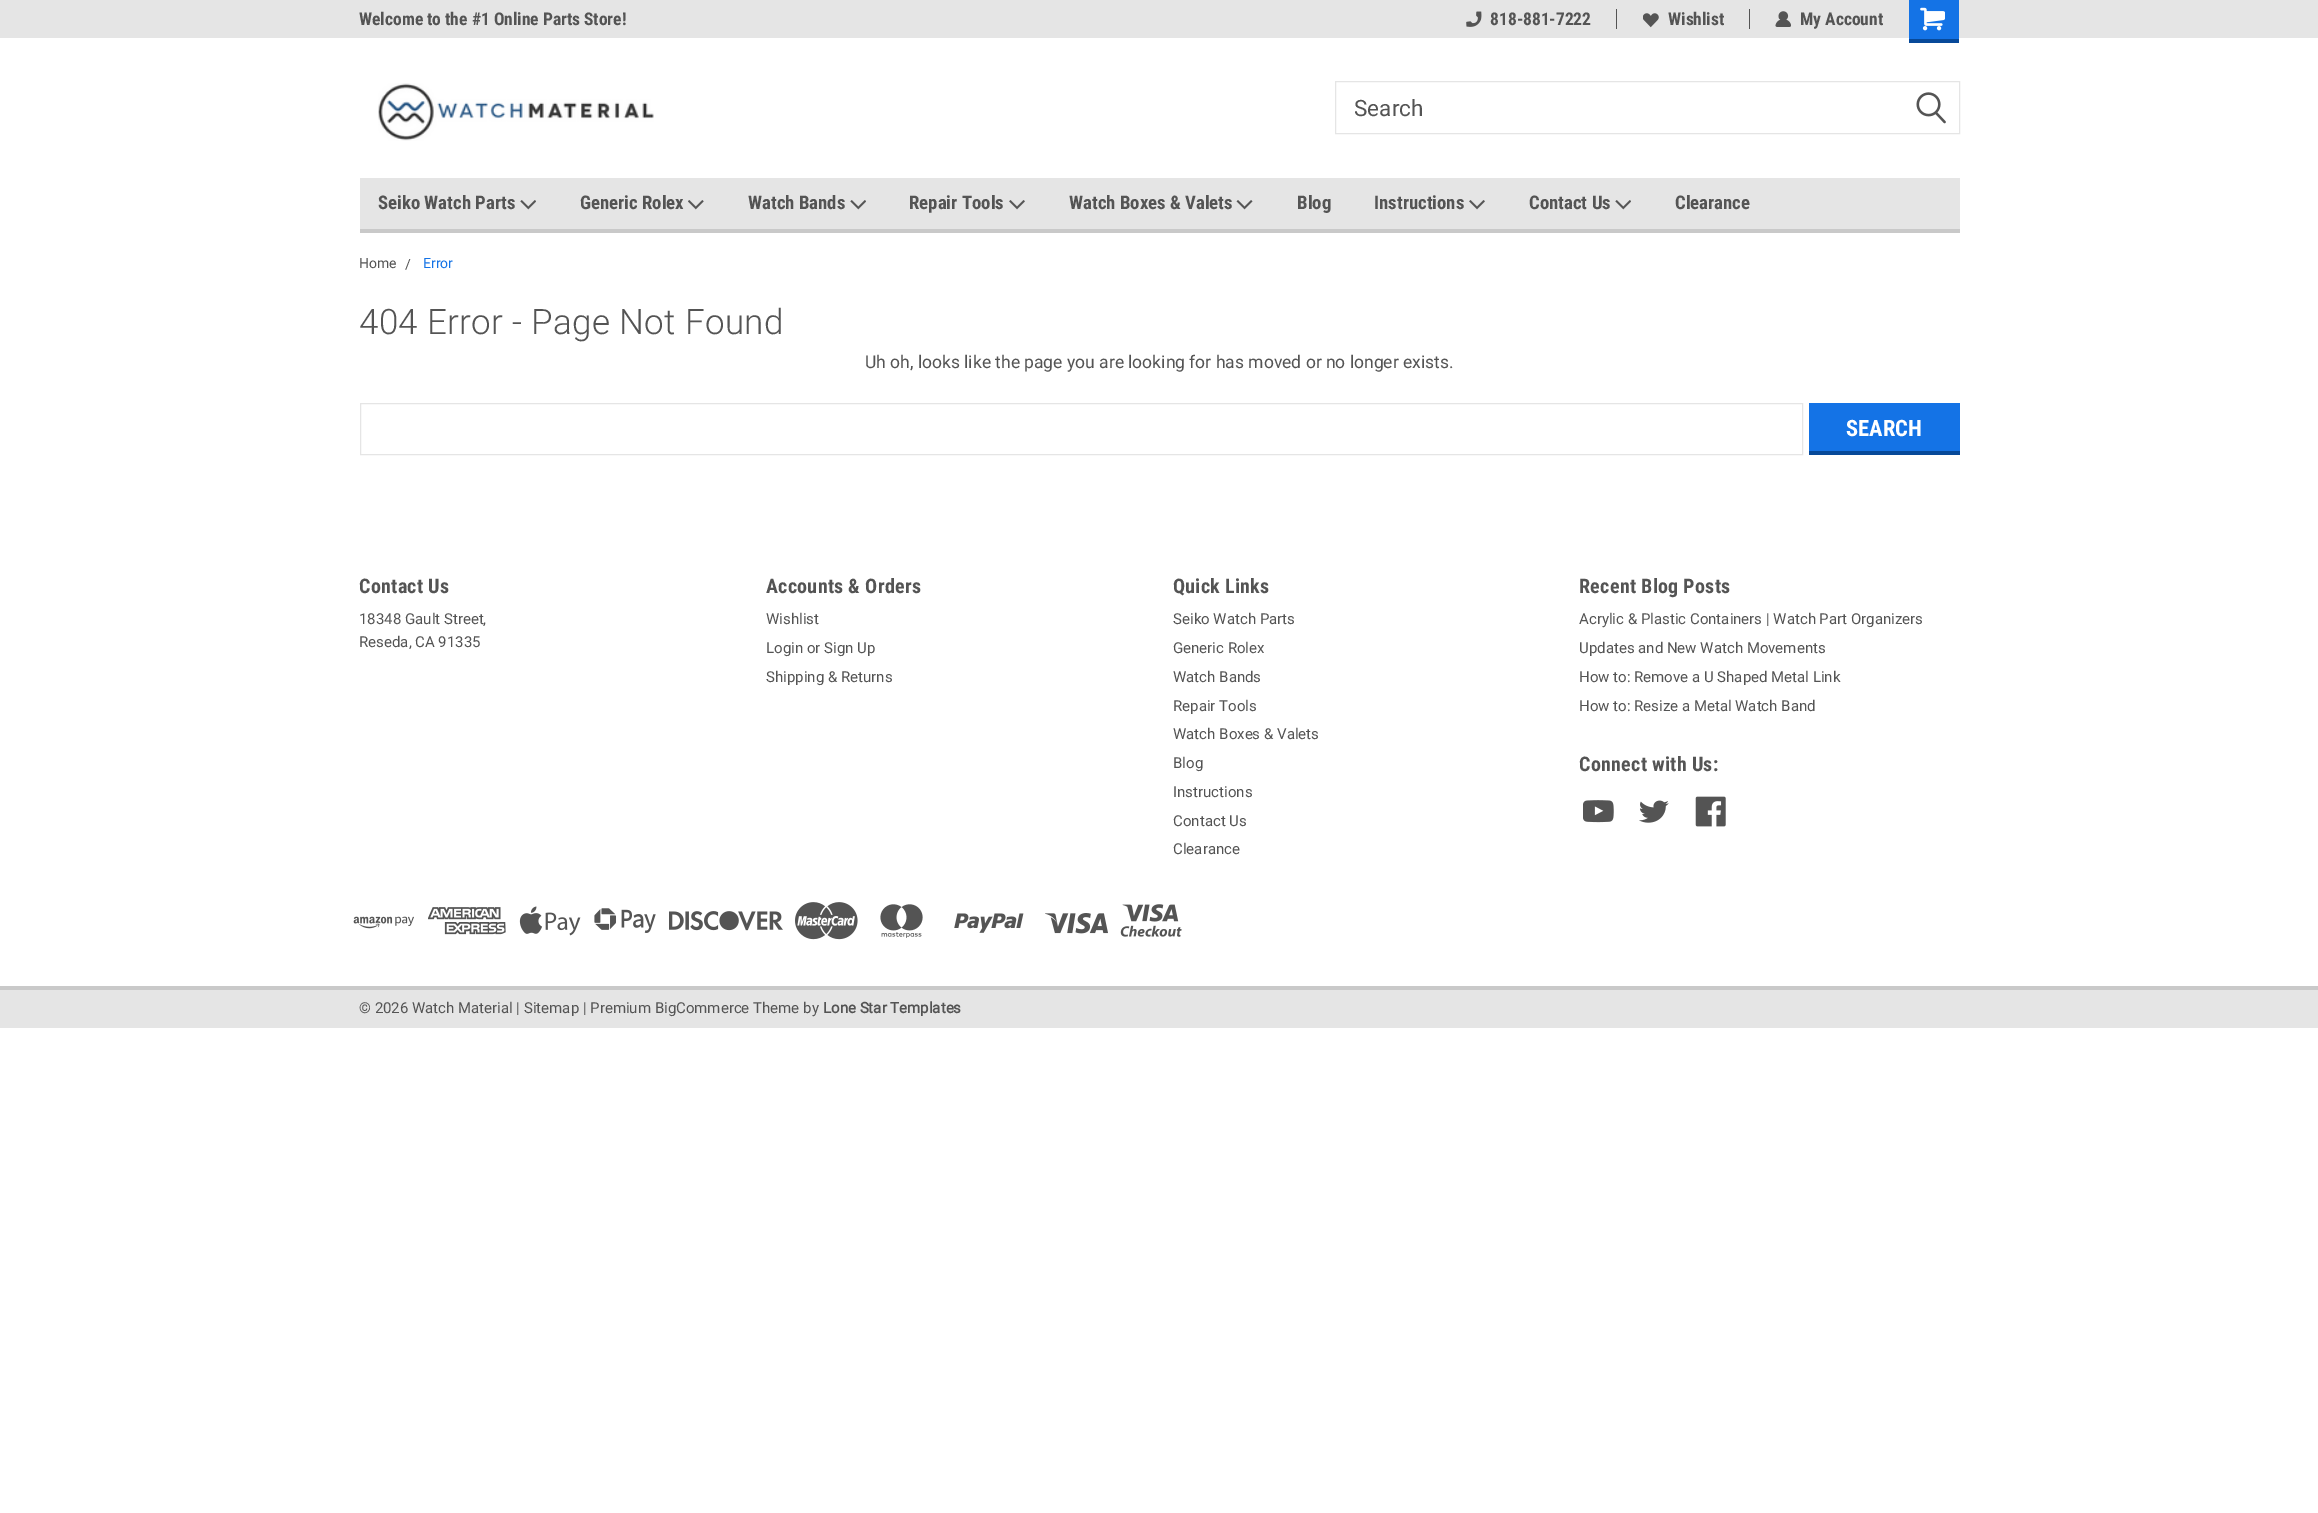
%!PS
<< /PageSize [2318 1513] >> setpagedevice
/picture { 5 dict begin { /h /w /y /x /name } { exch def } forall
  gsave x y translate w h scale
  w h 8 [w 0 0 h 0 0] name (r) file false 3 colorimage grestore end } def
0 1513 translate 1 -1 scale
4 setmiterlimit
1 setgray
0 0 2318 1513 rectfill
0.898 setgray
0 0 2318 38 rectfill
/RobotoCondensed-Bold [17.5 0 0 -17.5 0 0] selectfont
0.329 setgray
359 25 moveto (Welcome to the #1 Online Parts Store!) show
1616 9 1 20 rectfill
(img1.rgb) 1466 11 16 16 picture
1490 25 moveto (818-881-7222) show
1749 9 1 20 rectfill
(img2.rgb) 1643 13 16 15 picture
1668 25 moveto (Wishlist) show
(img3.rgb) 1775 11 16 16 picture
1800 25 moveto (My Account) show
0.078 0.451 0.902 setrgbcolor
1909 0 50 39 rectfill
0.027 0.286 0.6 setrgbcolor
1909 39 50 4 rectfill
(img4.rgb) 1920 7 25 24 picture
(img5.rgb) 378 83 276 58 picture
0.898 setgray
1335.5 81.5 624 52 rectstroke
/Roboto-Regular [22.5 0 0 -22.5 0 0] selectfont
0.329 setgray
1354 116 moveto (Search) show
(img6.rgb) 1916 92 30 32 picture
0.898 setgray
360 178 1600 51 rectfill
0.788 setgray
360 229 1600 4 rectfill
/RobotoCondensed-Bold [18.75 0 0 -18.75 0 0] selectfont
0.329 setgray
378 209 moveto (Seiko Watch Parts) show
(img7.rgb) 520 200 16 10 picture
580 209 moveto (Generic Rolex) show
(img8.rgb) 688 200 16 10 picture
748 209 moveto (Watch Bands) show
(img7.rgb) 850 200 16 10 picture
909 209 moveto (Repair Tools) show
(img9.rgb) 1009 200 16 10 picture
1069 209 moveto (Watch Boxes & Valets) show
(img10.rgb) 1236 200 17 10 picture
1297 209 moveto (Blog) show
1374 209 moveto (Instructions) show
(img9.rgb) 1469 200 16 10 picture
1529 209 moveto (Contact Us) show
(img7.rgb) 1615 200 16 10 picture
1675 209 moveto (Clearance) show
/Roboto-Regular [14 0 0 -14 0 0] selectfont
359 268 moveto (Home) show
405 269 moveto (/) show
0.078 0.451 0.902 setrgbcolor
423 268 moveto (Error) show
/Roboto-Light [35 0 0 -35 0 0] selectfont
0.329 setgray
359 334 moveto 0.3 0 (404 Error - Page Not Found) ashow
/Roboto-Regular [17.5 0 0 -17.5 0 0] selectfont
865 368 moveto (Uh oh, looks like the page you are looking for has moved or no longer exists.) show
0.898 setgray
360.5 403.5 1442 51 rectstroke
0.078 0.451 0.902 setrgbcolor
1809 403 151 48 rectfill
0.027 0.286 0.6 setrgbcolor
1809 451 151 4 rectfill
/RobotoCondensed-Bold [22.5 0 0 -22.5 0 0] selectfont
1 setgray
1846 436 moveto (SEARCH) show
/RobotoCondensed-Bold [20 0 0 -20 0 0] selectfont
0.329 setgray
359 593 moveto 0.3 0 (Contact Us) ashow
/Roboto-Regular [15 0 0 -15 0 0] selectfont
359 624 moveto (18348 Gault Street,) show
359 647 moveto (Reseda, CA 91335) show
/RobotoCondensed-Bold [20 0 0 -20 0 0] selectfont
766 593 moveto 0.3 0 (Accounts & Orders) ashow
/Roboto-Regular [15 0 0 -15 0 0] selectfont
766 624 moveto (Wishlist) show
766 653 moveto (Login or) show
824 653 moveto (Sign Up) show
766 682 moveto (Shipping & Returns) show
/RobotoCondensed-Bold [20 0 0 -20 0 0] selectfont
1173 593 moveto 0.3 0 (Quick Links) ashow
/Roboto-Regular [15 0 0 -15 0 0] selectfont
1173 624 moveto (Seiko Watch Parts) show
1173 653 moveto (Generic Rolex) show
1173 682 moveto (Watch Bands) show
1173 711 moveto (Repair Tools) show
1173 739 moveto (Watch Boxes & Valets) show
1173 768 moveto (Blog) show
1173 797 moveto (Instructions) show
1173 826 moveto (Contact Us) show
1173 854 moveto (Clearance) show
/RobotoCondensed-Bold [20 0 0 -20 0 0] selectfont
1579 593 moveto 0.3 0 (Recent Blog Posts) ashow
/Roboto-Regular [15 0 0 -15 0 0] selectfont
1579 624 moveto (Acrylic & Plastic Containers | Watch Part Organizers) show
1579 653 moveto (Updates and New Watch Movements) show
1579 682 moveto (How to: Remove a U Shaped Metal Link) show
1579 711 moveto (How to: Resize a Metal Watch Band) show
/RobotoCondensed-Bold [20 0 0 -20 0 0] selectfont
1579 771 moveto 0.3 0 (Connect with Us:) ashow
(img11.rgb) 1583 800 31 23 picture
(img12.rgb) 1639 800 30 23 picture
(img13.rgb) 1695 796 31 31 picture
(img14.rgb) 353 916 61 13 picture
(img15.rgb) 428 907 78 28 picture
(img16.rgb) 519 906 62 30 picture
(img17.rgb) 594 908 62 25 picture
(img18.rgb) 669 911 114 20 picture
(img19.rgb) 795 902 63 38 picture
(img20.rgb) 880 904 43 34 picture
(img21.rgb) 954 913 70 20 picture
(img22.rgb) 1045 913 63 21 picture
(img23.rgb) 1120 904 62 33 picture
0.898 setgray
0 990 2318 38 rectfill
0.788 setgray
0 986 2318 4 rectfill
/Roboto-Regular [15 0 0 -15 0 0] selectfont
0.329 setgray
359 1013 moveto (© 2026 Watch Material | Sitemap | Premium BigCommerce Theme by) show
/Roboto-Bold [15 0 0 -15 0 0] selectfont
823 1013 moveto (Lone Star Templates) show
showpage
